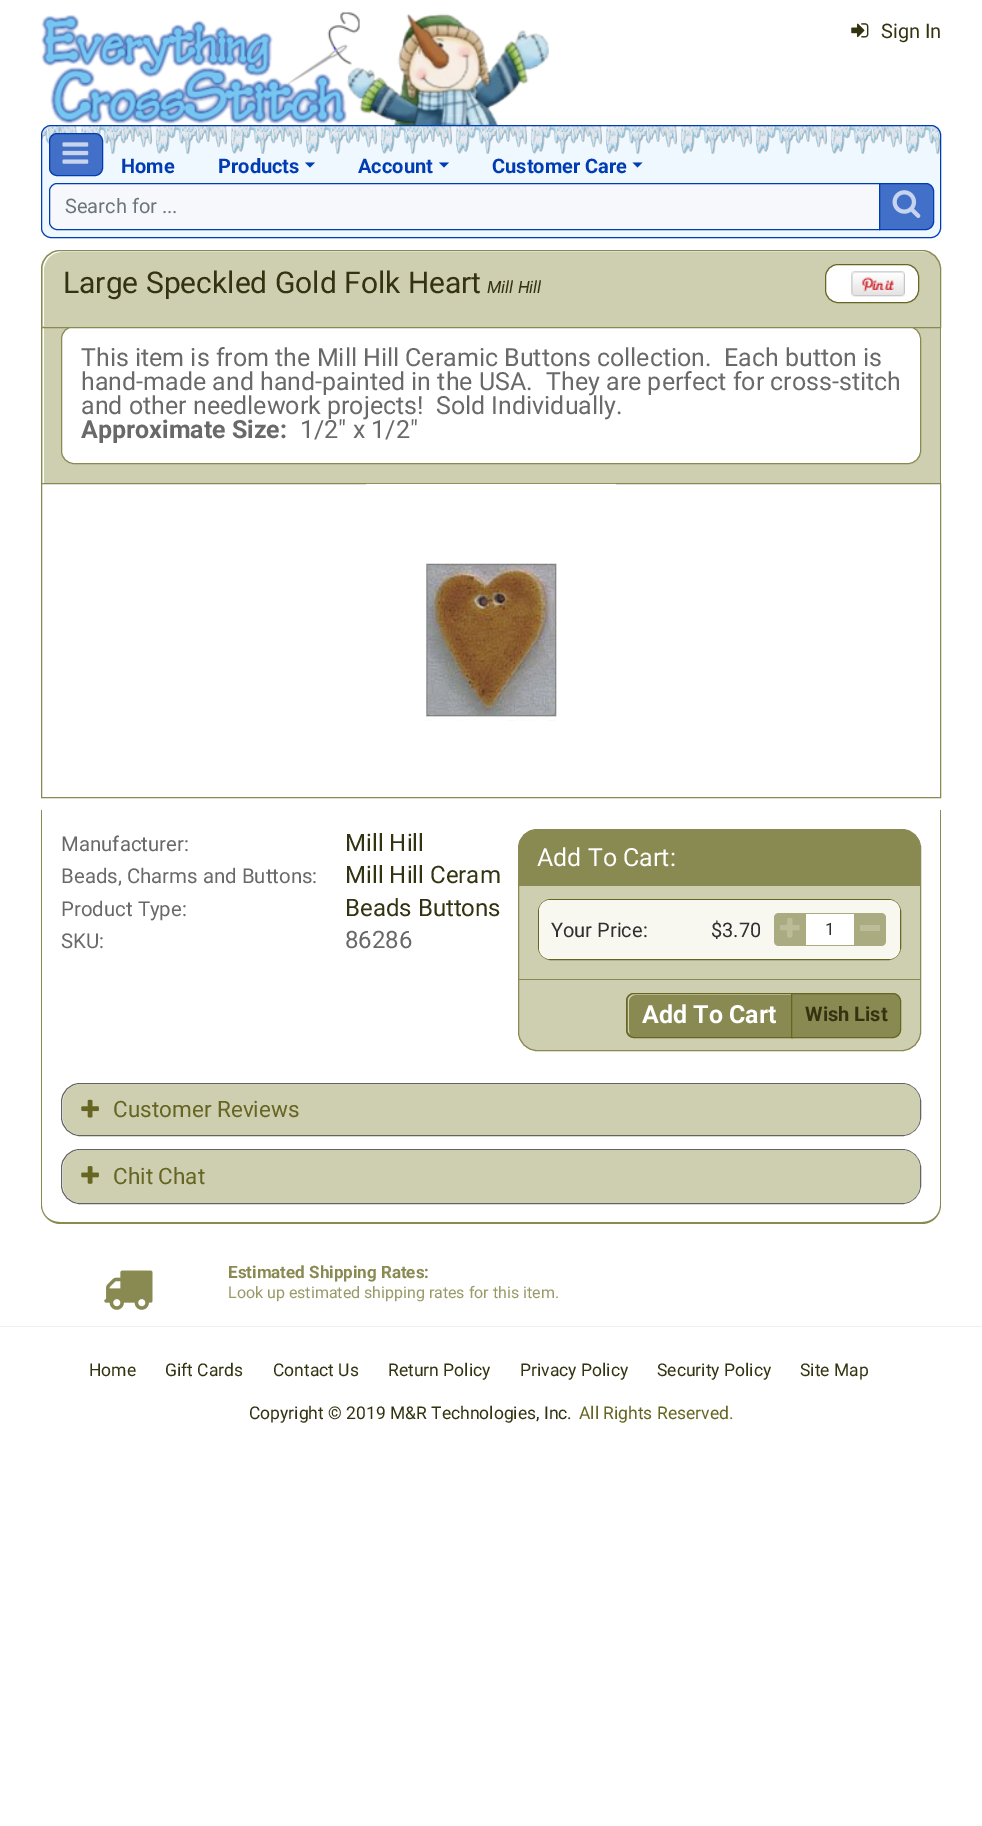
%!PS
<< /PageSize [982 1826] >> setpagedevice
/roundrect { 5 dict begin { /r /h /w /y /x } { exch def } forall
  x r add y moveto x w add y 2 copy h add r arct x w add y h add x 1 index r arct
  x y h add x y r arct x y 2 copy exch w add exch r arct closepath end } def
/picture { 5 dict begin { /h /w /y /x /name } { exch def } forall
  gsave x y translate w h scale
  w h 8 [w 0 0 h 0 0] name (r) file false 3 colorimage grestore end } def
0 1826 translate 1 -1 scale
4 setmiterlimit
1 setgray
0 0 982 1826 rectfill
(img1.rgb) 41 12 508 113 picture
(img2.rgb) 851 23 18 15 picture
/Roboto-Regular [20 0 0 -20 0 0] selectfont
0.2 0.2 0.067 setrgbcolor
881 38 moveto (Sign In) show
0.941 0.973 1 setrgbcolor
41 125 900 113 10 roundrect fill
(img3.rgb) 41 125 901 30 picture
0 0.235 0.706 setrgbcolor
41.5 125.5 899 112 9.5 roundrect stroke
0.259 0.435 0.78 setrgbcolor
49.5 133.5 53 42 7.5 roundrect gsave fill grestore
0 0.235 0.706 setrgbcolor
stroke
(img4.rgb) 62 142 27 22 picture
/Roboto-Bold [20 0 0 -20 0 0] selectfont
121 173 moveto (Home) show
218 173 moveto (Products) show
newpath 305 162.5 moveto 315 162.5 lineto 310 167.5 lineto closepath fill
358 173 moveto (Account) show
newpath 439 162.5 moveto 449 162.5 lineto 444 167.5 lineto closepath fill
492 173 moveto (Customer Care) show
newpath 632.5 162.5 moveto 642.5 162.5 lineto 637.5 167.5 lineto closepath fill
0.965 0.973 0.988 setrgbcolor
newpath 56 184 moveto 879 184 lineto 879 229 lineto 56 229 lineto 52.5 229 50 226.5 50 223 curveto 50 190 lineto 50 186.5 52.5 184 56 184 curveto closepath fill
0 0.235 0.706 setrgbcolor
newpath 57 183.5 moveto 879.5 183.5 lineto 879.5 229.5 lineto 57 229.5 lineto 53 229.5 49.5 226 49.5 222 curveto 49.5 191 lineto 49.5 187 53 183.5 57 183.5 curveto closepath stroke
/Roboto-Regular [20 0 0 -20 0 0] selectfont
0.424 0.459 0.49 setrgbcolor
65 213 moveto (Search for ...) show
0.259 0.435 0.78 setrgbcolor
newpath 879.5 183.5 moveto 926 183.5 lineto 930 183.5 933.5 187 933.5 191 curveto 933.5 222 lineto 933.5 226 930 229.5 926 229.5 curveto 879.5 229.5 lineto closepath gsave fill grestore
0 0.235 0.706 setrgbcolor
stroke
(img5.rgb) 892 190 29 28 picture
0.808 0.808 0.694 setrgbcolor
42 328 898 155 rectfill
1 setgray
43 326 1 157 rectfill
0.537 0.537 0.322 setrgbcolor
940 326 1 158 rectfill
41 326 1 158 rectfill
1 setgray
61.5 326.5 859 137 12.5 roundrect gsave fill grestore
0.537 0.537 0.322 setrgbcolor
stroke
0.808 0.808 0.694 setrgbcolor
newpath 60 250 moveto 922 250 lineto 932.5 250 941 258.5 941 269 curveto 941 328 lineto 41 328 lineto 41 269 lineto 41 258.5 49.5 250 60 250 curveto closepath fill
1 setgray
newpath 61 252 moveto 924 252 lineto 928 252 931 253 934 255 curveto 931 253 926 251 922 251 curveto 61 251 lineto 51 251 43 259 43 269 curveto 43 326 lineto 44 326 lineto 44 270 lineto 44 260 52 252 61 252 curveto closepath fill
0.537 0.537 0.322 setrgbcolor
newpath 60 250.5 moveto 922 250.5 lineto 932 250.5 940.5 259 940.5 269 curveto 940.5 327.5 lineto 41.5 327.5 lineto 41.5 269 lineto 41.5 259 50 250.5 60 250.5 curveto closepath stroke
0.808 0.808 0.694 setrgbcolor
newpath 63 253 moveto 494 253 lineto 494 314 lineto 44 314 lineto 44 272 lineto 44 261.5 52.5 253 63 253 curveto closepath fill
/Roboto-Regular [30 0 0 -30 0 0] selectfont
0.2 0.2 0.067 setrgbcolor
63 293 moveto (Large Speckled Gold Folk Heart) show
/Roboto-Italic [17 0 0 -17 0 0] selectfont
487 293 moveto (Mill Hill) show
1 setgray
825.5 264.5 93 38 12.5 roundrect gsave fill grestore
0.4 0.4 0.133 setrgbcolor
stroke
(img6.rgb) 851 271 54 26 picture
/Roboto-Regular [25 0 0 -25 0 0] selectfont
0.412 setgray
81 366 moveto (This item is from the Mill Hill Ceramic Buttons collection.) show
724 366 moveto (Each button is) show
81 390 moveto (hand-made and hand-painted in the USA.) show
546 390 moveto (They are perfect for cross-stitch) show
81 414 moveto (and other needlework projects!) show
436 414 moveto (Sold Individually.) show
/Roboto-Bold [25 0 0 -25 0 0] selectfont
81 438 moveto (Approximate Size:) show
/Roboto-Regular [25 0 0 -25 0 0] selectfont
300 438 moveto (1/2" x 1/2") show
0.537 0.537 0.322 setrgbcolor
41.5 483.5 899 314 rectstroke
(img7.rgb) 366 483 250 238 picture
newpath 41 810 moveto 941 810 lineto 941 1205 lineto 941 1215 933 1224 922 1224 curveto 60 1224 lineto 50 1224 41 1215 41 1205 curveto closepath 42 810 moveto 940 810 lineto 940 1205 lineto 940 1215 932 1222 922 1222 curveto 60 1222 lineto 50 1222 42 1215 42 1205 curveto closepath eofill
/Roboto-Regular [20.4 0 0 -20.4 0 0] selectfont
0.412 setgray
61 851 moveto (Manufacturer:) show
/Roboto-Regular [24 0 0 -24 0 0] selectfont
0.2 0.2 0.067 setrgbcolor
345 851 moveto (Mill Hill) show
/Roboto-Regular [20.4 0 0 -20.4 0 0] selectfont
0.412 setgray
61 883 moveto (Beads, Charms and Buttons:) show
/Roboto-Regular [24 0 0 -24 0 0] selectfont
0.2 0.2 0.067 setrgbcolor
345 883 moveto (Mill Hill Ceram) show
/Roboto-Regular [20.4 0 0 -20.4 0 0] selectfont
0.412 setgray
61 916 moveto (Product Type:) show
/Roboto-Regular [24 0 0 -24 0 0] selectfont
0.2 0.2 0.067 setrgbcolor
345 916 moveto (Beads Buttons) show
/Roboto-Regular [20.4 0 0 -20.4 0 0] selectfont
0.412 setgray
61 948 moveto (SKU:) show
/Roboto-Regular [24 0 0 -24 0 0] selectfont
345 948 moveto (86286) show
0.808 0.808 0.694 setrgbcolor
518.5 829.5 402 221 18.5 roundrect gsave fill grestore
0.537 0.537 0.322 setrgbcolor
stroke
newpath 537 830 moveto 902 830 lineto 912 830 920 838 920 848 curveto 920 886 lineto 519 886 lineto 519 848 lineto 519 838 527 830 537 830 curveto closepath fill
/Roboto-Regular [25 0 0 -25 0 0] selectfont
1 setgray
537 866 moveto (Add To Cart:) show
0.4 0.4 0.133 setrgbcolor
538.5 899.5 362 60 12.5 roundrect stroke
0.973 0.973 0.941 setrgbcolor
539 900 361 59 11 roundrect fill
/Roboto-Regular [20 0 0 -20 0 0] selectfont
0.188 setgray
551 937 moveto (Your Price:) show
711 937 moveto ($3.70) show
0.671 0.671 0.506 setrgbcolor
newpath 779 913 moveto 881 913 lineto 884 913 886 915 886 918 curveto 886 941 lineto 886 944 884 946 881 946 curveto 779 946 lineto 776 946 774 944 774 941 curveto 774 918 lineto 774 915 776 913 779 913 curveto closepath fill
(img8.rgb) 780 918 20 20 picture
1 setgray
806 914 48 31 rectfill
/Roboto-Regular [17 0 0 -17 0 0] selectfont
0.188 setgray
825 935 moveto (1) show
0.737 0.737 0.6 setrgbcolor
860 925 20 6 rectfill
0.537 0.537 0.322 setrgbcolor
519 979 401 1 rectfill
newpath 634 993 moveto 793 993 lineto 793 1038 lineto 634 1038 lineto 629.5 1038 626 1034.5 626 1030 curveto 626 1001 lineto 626 996.5 629.5 993 634 993 curveto closepath fill
0.808 0.808 0.694 setrgbcolor
newpath 635 995 moveto 791 995 lineto 791 994 lineto 634 994 lineto 631 994 628 997 628 1000 curveto 628 1030 lineto 628 1032 629 1033 630 1034 curveto 629 1031 lineto 629 1001 lineto 629 998 632 995 635 995 curveto closepath fill
0.4 0.4 0.133 setrgbcolor
newpath 634 993.5 moveto 792.5 993.5 lineto 792.5 1037.5 lineto 634 1037.5 lineto 630 1037.5 626.5 1034 626.5 1030 curveto 626.5 1001 lineto 626.5 997 630 993.5 634 993.5 curveto closepath stroke
/Roboto-Bold [25 0 0 -25 0 0] selectfont
1 setgray
642 1023 moveto (Add To Cart) show
0.537 0.537 0.322 setrgbcolor
newpath 791.5 993.5 moveto 893 993.5 lineto 897 993.5 900.5 997 900.5 1001 curveto 900.5 1030 lineto 900.5 1034 897 1037.5 893 1037.5 curveto 791.5 1037.5 lineto closepath gsave fill grestore
0.4 0.4 0.133 setrgbcolor
stroke
/Roboto-Bold [20 0 0 -20 0 0] selectfont
0.2 0.2 0.067 setrgbcolor
805 1021 moveto (Wish List) show
0.392 setgray
61.5 1083.5 859 52 18.5 roundrect stroke
0.808 0.808 0.694 setrgbcolor
63 1084 857 51 18 roundrect fill
(img9.rgb) 81 1099 18 19 picture
/Roboto-Regular [22.5 0 0 -22.5 0 0] selectfont
0.4 0.4 0.133 setrgbcolor
113 1117 moveto (Customer Reviews) show
0.392 setgray
61.5 1149.5 859 54 18.5 roundrect stroke
0.808 0.808 0.694 setrgbcolor
63 1150 857 53 18 roundrect fill
(img10.rgb) 81 1166 18 18 picture
0.4 0.4 0.133 setrgbcolor
113 1184 moveto (Chit Chat) show
(img11.rgb) 104 1270 49 40 picture
/Roboto-Bold [17 0 0 -17 0 0] selectfont
0.537 0.537 0.322 setrgbcolor
228 1278 moveto (Estimated Shipping Rates:) show
/Roboto-Regular [16 0 0 -16 0 0] selectfont
0.604 0.604 0.412 setrgbcolor
228 1298 moveto (Look up estimated shipping rates for this item.) show
0.937 setgray
0 1326 982 1 rectfill
/Roboto-Regular [17.5 0 0 -17.5 0 0] selectfont
0.2 0.2 0.067 setrgbcolor
89 1376 moveto (Home) show
165 1376 moveto (Gift Cards) show
273 1376 moveto (Contact Us) show
388 1376 moveto (Return Policy) show
520 1376 moveto (Privacy Policy) show
657 1376 moveto (Security Policy) show
800 1376 moveto (Site Map) show
249 1419 moveto (Copyright © 2019 M&R Technologies, Inc.) show
0.4 0.4 0.133 setrgbcolor
579 1419 moveto (All Rights Reserved.) show
showpage
